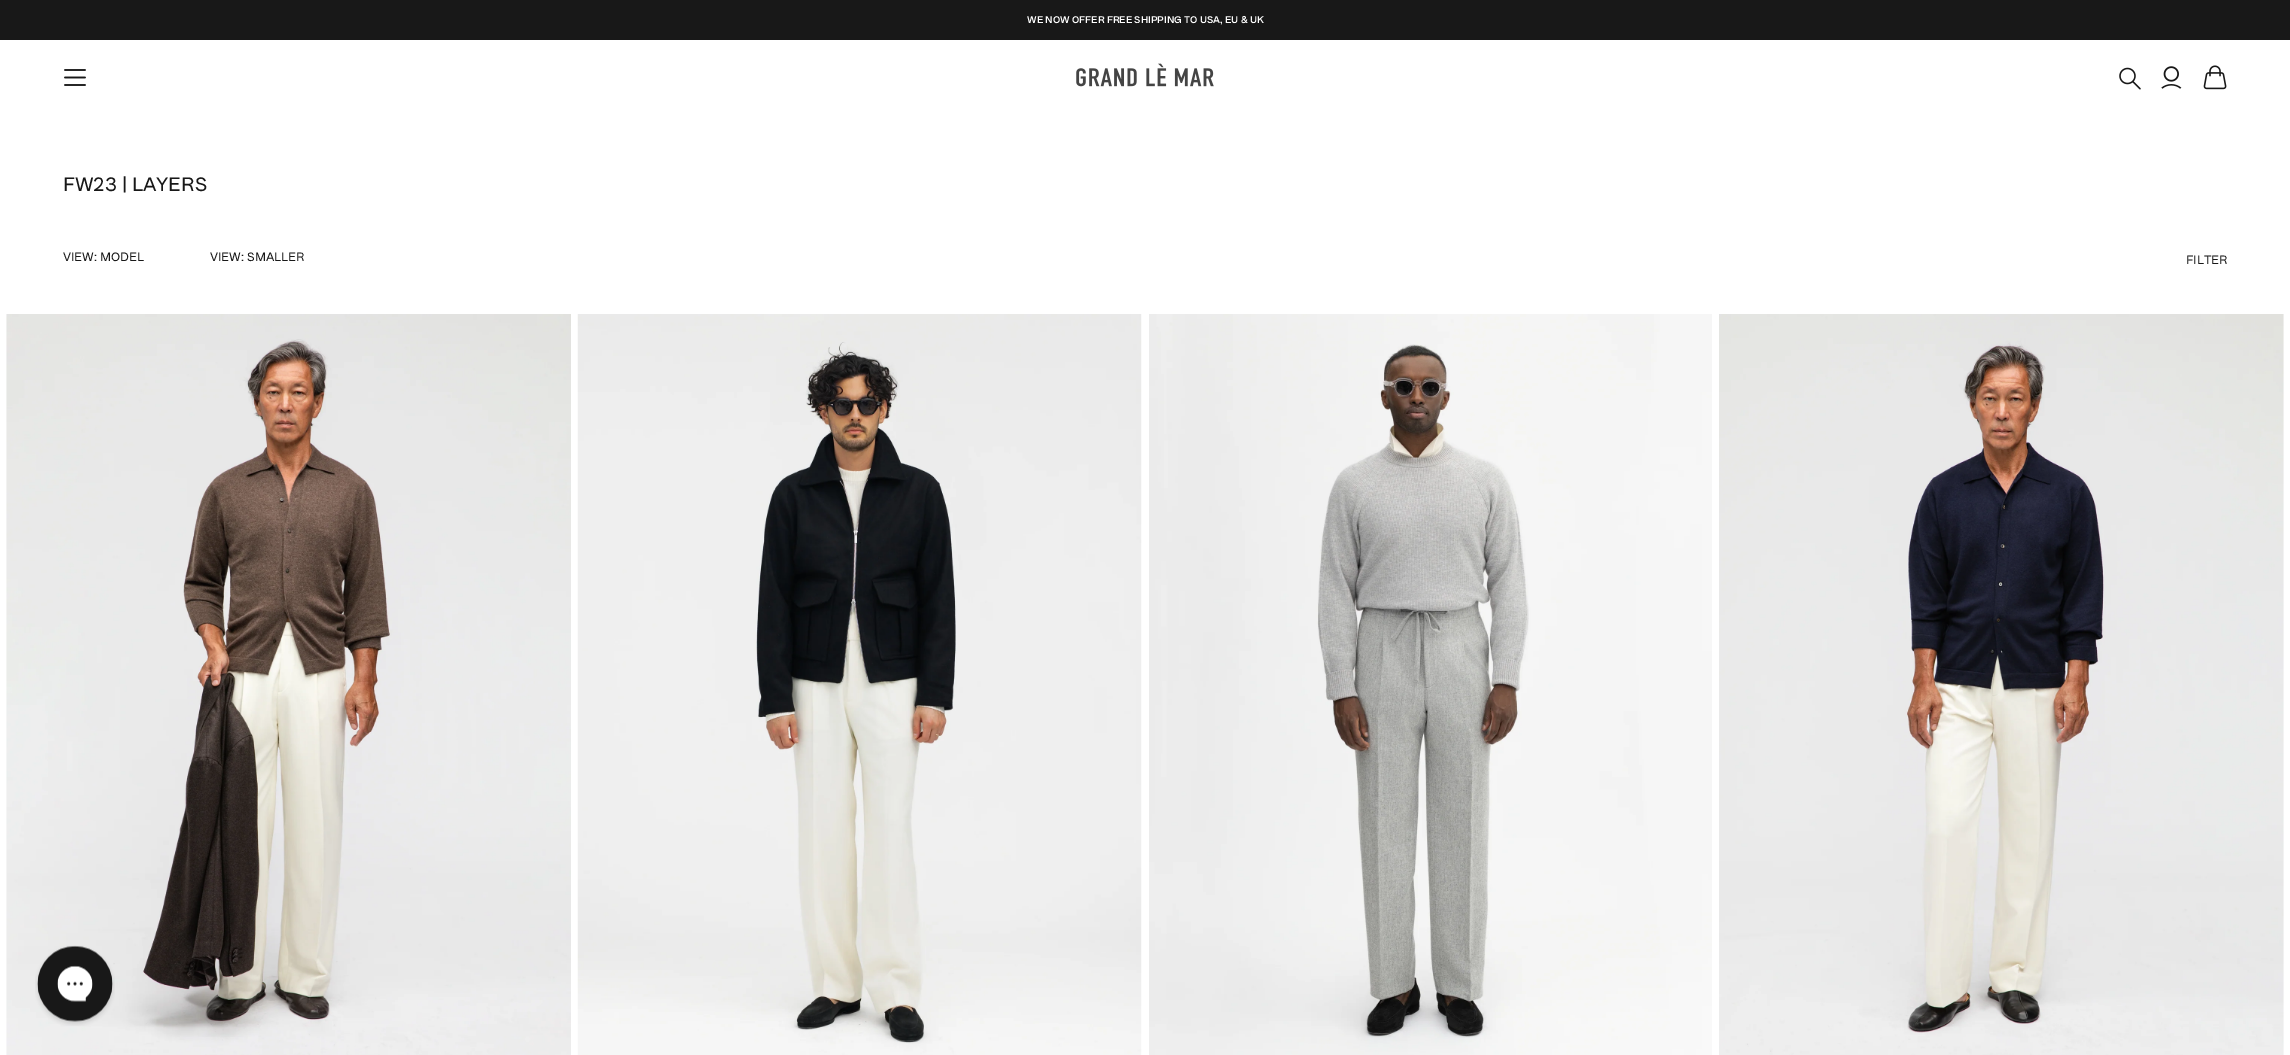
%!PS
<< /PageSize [2290 1055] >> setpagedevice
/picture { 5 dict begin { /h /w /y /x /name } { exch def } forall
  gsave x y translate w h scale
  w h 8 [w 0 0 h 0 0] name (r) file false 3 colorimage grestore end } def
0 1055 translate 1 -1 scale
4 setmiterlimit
1 setgray
0 0 2290 1055 rectfill
0.094 setgray
0 0 2290 40 rectfill
/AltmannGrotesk-Medium [10 0 0 -10 0 0] selectfont
1 setgray
1027 23 moveto (WE NOW OFFER FREE SHIPPING TO USA, EU & UK) show
(img1.rgb) 64 69 22 17 picture
(img2.rgb) 1076 63 138 24 picture
(img3.rgb) 2119 67 22 23 picture
(img4.rgb) 2161 66 21 23 picture
(img5.rgb) 2203 65 24 25 picture
/AltmannGrotesk-Regular [20 0 0 -20 0 0] selectfont
0.094 setgray
63 191 moveto (FW23 | LAYERS) show
/AltmannGrotesk-Regular [12.5 0 0 -12.5 0 0] selectfont
63 261 moveto (VIEW: MODEL) show
210 261 moveto (VIEW: SMALLER) show
2186 264 moveto (FILTER) show
(img6.rgb) 6 314 565 741 picture
(img7.rgb) 577 314 565 741 picture
(img8.rgb) 1149 314 563 741 picture
(img9.rgb) 1719 314 565 741 picture
(img10.rgb) 35 945 80 81 picture
showpage
